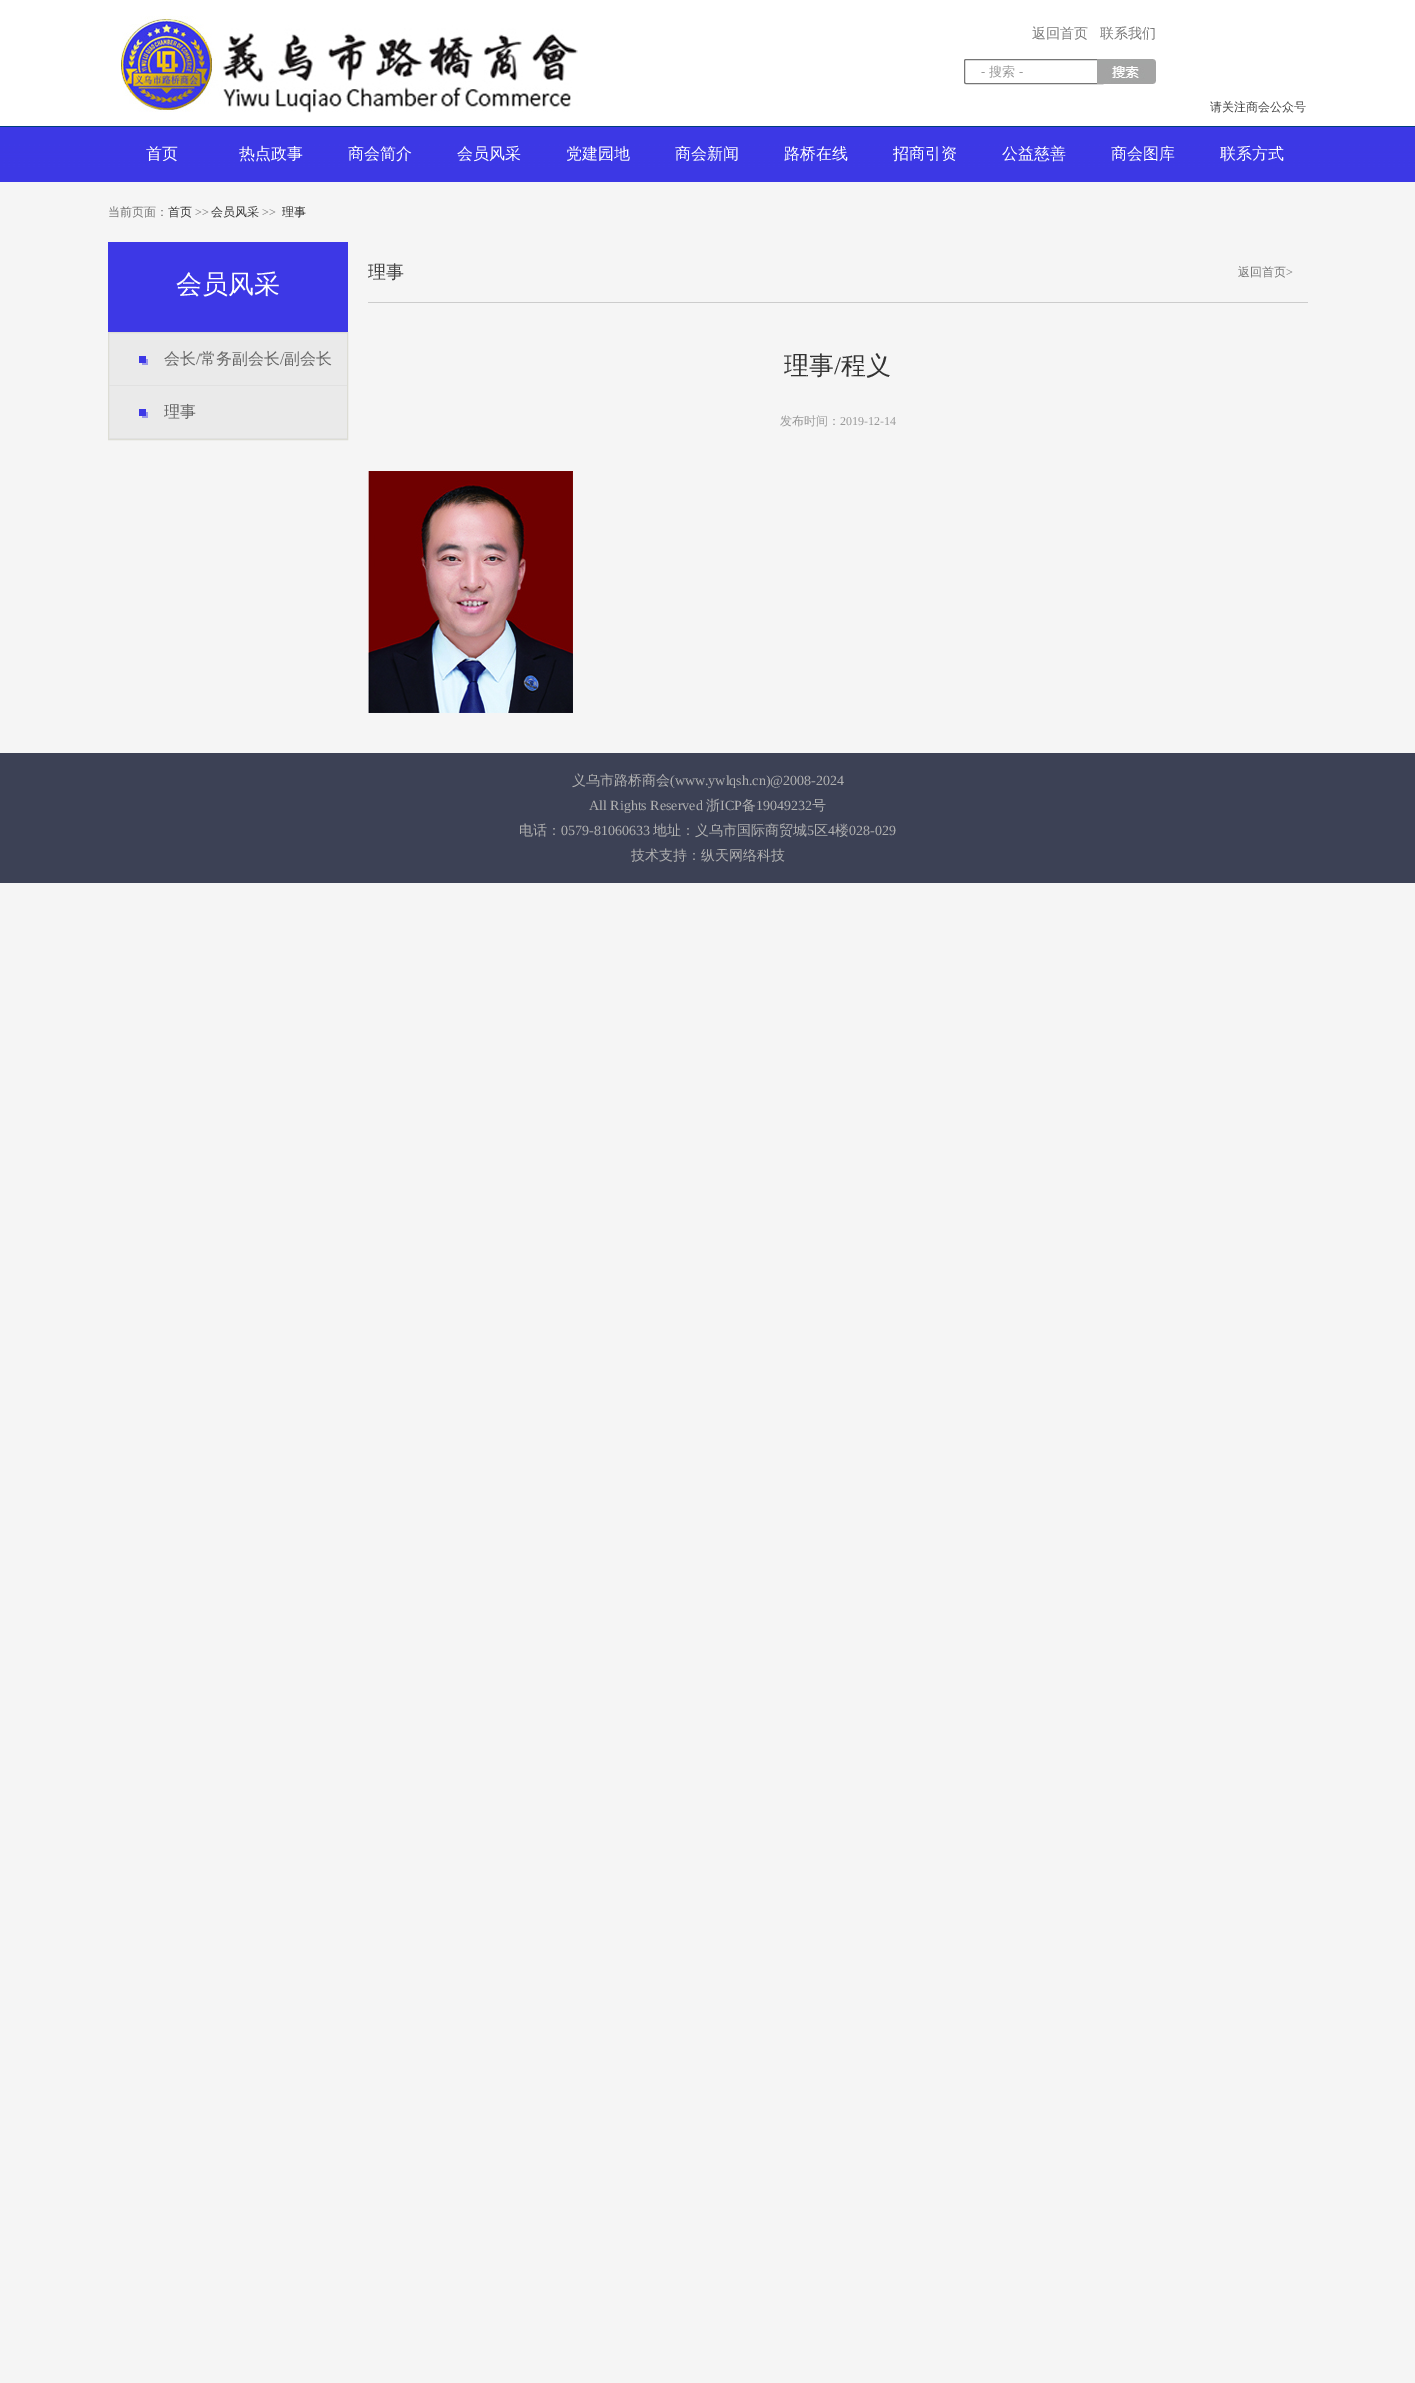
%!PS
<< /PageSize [1415 2383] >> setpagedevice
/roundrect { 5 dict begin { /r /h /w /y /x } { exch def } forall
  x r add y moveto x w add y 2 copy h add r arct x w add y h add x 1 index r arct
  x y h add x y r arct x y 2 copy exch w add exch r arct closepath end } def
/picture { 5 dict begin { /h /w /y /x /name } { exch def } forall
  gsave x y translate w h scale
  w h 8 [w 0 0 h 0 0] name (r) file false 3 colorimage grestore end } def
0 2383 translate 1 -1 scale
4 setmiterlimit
0.961 setgray
0 0 1415 2383 rectfill
(img1.rgb) 0 0 1415 182 picture
(img2.rgb) 121 16 457 97 picture
/WenQuanYiZenHei-Medium [14 0 0 -14 0 0] selectfont
0.467 setgray
1032 38 moveto (返回首页) show
1100 38 moveto (联系我们) show
0.463 setgray
964.5 59.5 140 24 1.5 roundrect stroke
/LiberationSans-Regular [13 0 0 -13 0 0] selectfont
0.6 setgray
981 76 moveto (-) show
/WenQuanYiZenHei-Medium [13 0 0 -13 0 0] selectfont
989 76 moveto (搜索) show
/LiberationSans-Regular [13 0 0 -13 0 0] selectfont
1019 76 moveto (-) show
(img3.rgb) 1097 59 59 25 picture
/WenQuanYiZenHei-Medium [12 0 0 -12 0 0] selectfont
0.267 setgray
1210 111 moveto (请关注商会公众号) show
/WenQuanYiZenHei-Medium [16 0 0 -16 0 0] selectfont
1 setgray
146 159 moveto (首页) show
239 159 moveto (热点政事) show
348 159 moveto (商会简介) show
457 159 moveto (会员风采) show
566 159 moveto (党建园地) show
675 159 moveto (商会新闻) show
784 159 moveto (路桥在线) show
893 159 moveto (招商引资) show
1002 159 moveto (公益慈善) show
1111 159 moveto (商会图库) show
1220 159 moveto (联系方式) show
/WenQuanYiZenHei-Medium [12 0 0 -12 0 0] selectfont
0.467 setgray
108 216 moveto (当前页面：) show
0.2 setgray
168 216 moveto (首页) show
/LiberationSerif-Regular [12 0 0 -12 0 0] selectfont
0.467 setgray
195 216 moveto (>>) show
/WenQuanYiZenHei-Medium [12 0 0 -12 0 0] selectfont
0.2 setgray
211 216 moveto (会员风采) show
/LiberationSerif-Regular [12 0 0 -12 0 0] selectfont
0.467 setgray
262 216 moveto (>>) show
/WenQuanYiZenHei-Medium [12 0 0 -12 0 0] selectfont
0.2 setgray
282 216 moveto (理事) show
0.239 0.22 0.902 setrgbcolor
108 242 240 90 rectfill
/WenQuanYiZenHei-Medium [26 0 0 -26 0 0] selectfont
1 setgray
176 293 moveto (会员风采) show
0.918 setgray
109 333 238 105 rectfill
0.867 0.867 0.835 setrgbcolor
108.5 332.5 239 107 rectstroke
(img4.rgb) 139 356 9 9 picture
0.882 setgray
109 385 238 1 rectfill
/WenQuanYiZenHei-Medium [16 0 0 -16 0 0] selectfont
0.4 setgray
164 364 moveto (会长) show
/LiberationSerif-Regular [16 0 0 -16 0 0] selectfont
196 364 moveto (/) show
/WenQuanYiZenHei-Medium [16 0 0 -16 0 0] selectfont
200 364 moveto (常务副会长) show
/LiberationSerif-Regular [16 0 0 -16 0 0] selectfont
280 364 moveto (/) show
/WenQuanYiZenHei-Medium [16 0 0 -16 0 0] selectfont
284 364 moveto (副会长) show
(img4.rgb) 139 409 9 9 picture
0.882 setgray
109 438 238 1 rectfill
0.4 setgray
164 417 moveto (理事) show
0.8 setgray
368 302 940 1 rectfill
/WenQuanYiZenHei-Medium [18 0 0 -18 0 0] selectfont
0.267 setgray
368 278 moveto (理事) show
/WenQuanYiZenHei-Medium [12 0 0 -12 0 0] selectfont
0.467 setgray
1238 276 moveto (返回首页) show
/LiberationSerif-Regular [12 0 0 -12 0 0] selectfont
1286 276 moveto (>) show
/WenQuanYiZenHei-Medium [25 0 0 -25 0 0] selectfont
0.2 setgray
784 374 moveto (理事) show
/LiberationSerif-Regular [25 0 0 -25 0 0] selectfont
834 374 moveto (/) show
/WenQuanYiZenHei-Medium [25 0 0 -25 0 0] selectfont
841 374 moveto (程义) show
/WenQuanYiZenHei-Medium [12 0 0 -12 0 0] selectfont
0.6 setgray
780 425 moveto (发布时间：) show
/LiberationSerif-Regular [12 0 0 -12 0 0] selectfont
840 425 moveto (2019-12-14) show
(img5.rgb) 368 471 205 242 picture
0.235 0.255 0.333 setrgbcolor
0 753 1415 130 rectfill
/WenQuanYiZenHei-Medium [14 0 0 -14 0 0] selectfont
0.69 setgray
572 785 moveto (义乌市路桥商会) show
/LiberationSerif-Regular [14 0 0 -14 0 0] selectfont
670 785 moveto (\(www.ywlqsh.cn\)@2008-2024) show
589 810 moveto (All Rights Reserved) show
/WenQuanYiZenHei-Medium [14 0 0 -14 0 0] selectfont
706 810 moveto (浙) show
/LiberationSerif-Regular [14 0 0 -14 0 0] selectfont
720 810 moveto (ICP) show
/WenQuanYiZenHei-Medium [14 0 0 -14 0 0] selectfont
742 810 moveto (备) show
/LiberationSerif-Regular [14 0 0 -14 0 0] selectfont
756 810 moveto (19049232) show
/WenQuanYiZenHei-Medium [14 0 0 -14 0 0] selectfont
812 810 moveto (号) show
519 835 moveto (电话：) show
/LiberationSerif-Regular [14 0 0 -14 0 0] selectfont
561 835 moveto (0579-81060633) show
/WenQuanYiZenHei-Medium [14 0 0 -14 0 0] selectfont
653 835 moveto (地址：义乌市国际商贸城) show
/LiberationSerif-Regular [14 0 0 -14 0 0] selectfont
807 835 moveto (5) show
/WenQuanYiZenHei-Medium [14 0 0 -14 0 0] selectfont
814 835 moveto (区) show
/LiberationSerif-Regular [14 0 0 -14 0 0] selectfont
828 835 moveto (4) show
/WenQuanYiZenHei-Medium [14 0 0 -14 0 0] selectfont
835 835 moveto (楼) show
/LiberationSerif-Regular [14 0 0 -14 0 0] selectfont
849 835 moveto (028-029) show
/WenQuanYiZenHei-Medium [14 0 0 -14 0 0] selectfont
631 860 moveto (技术支持：纵天网络科技) show
showpage
